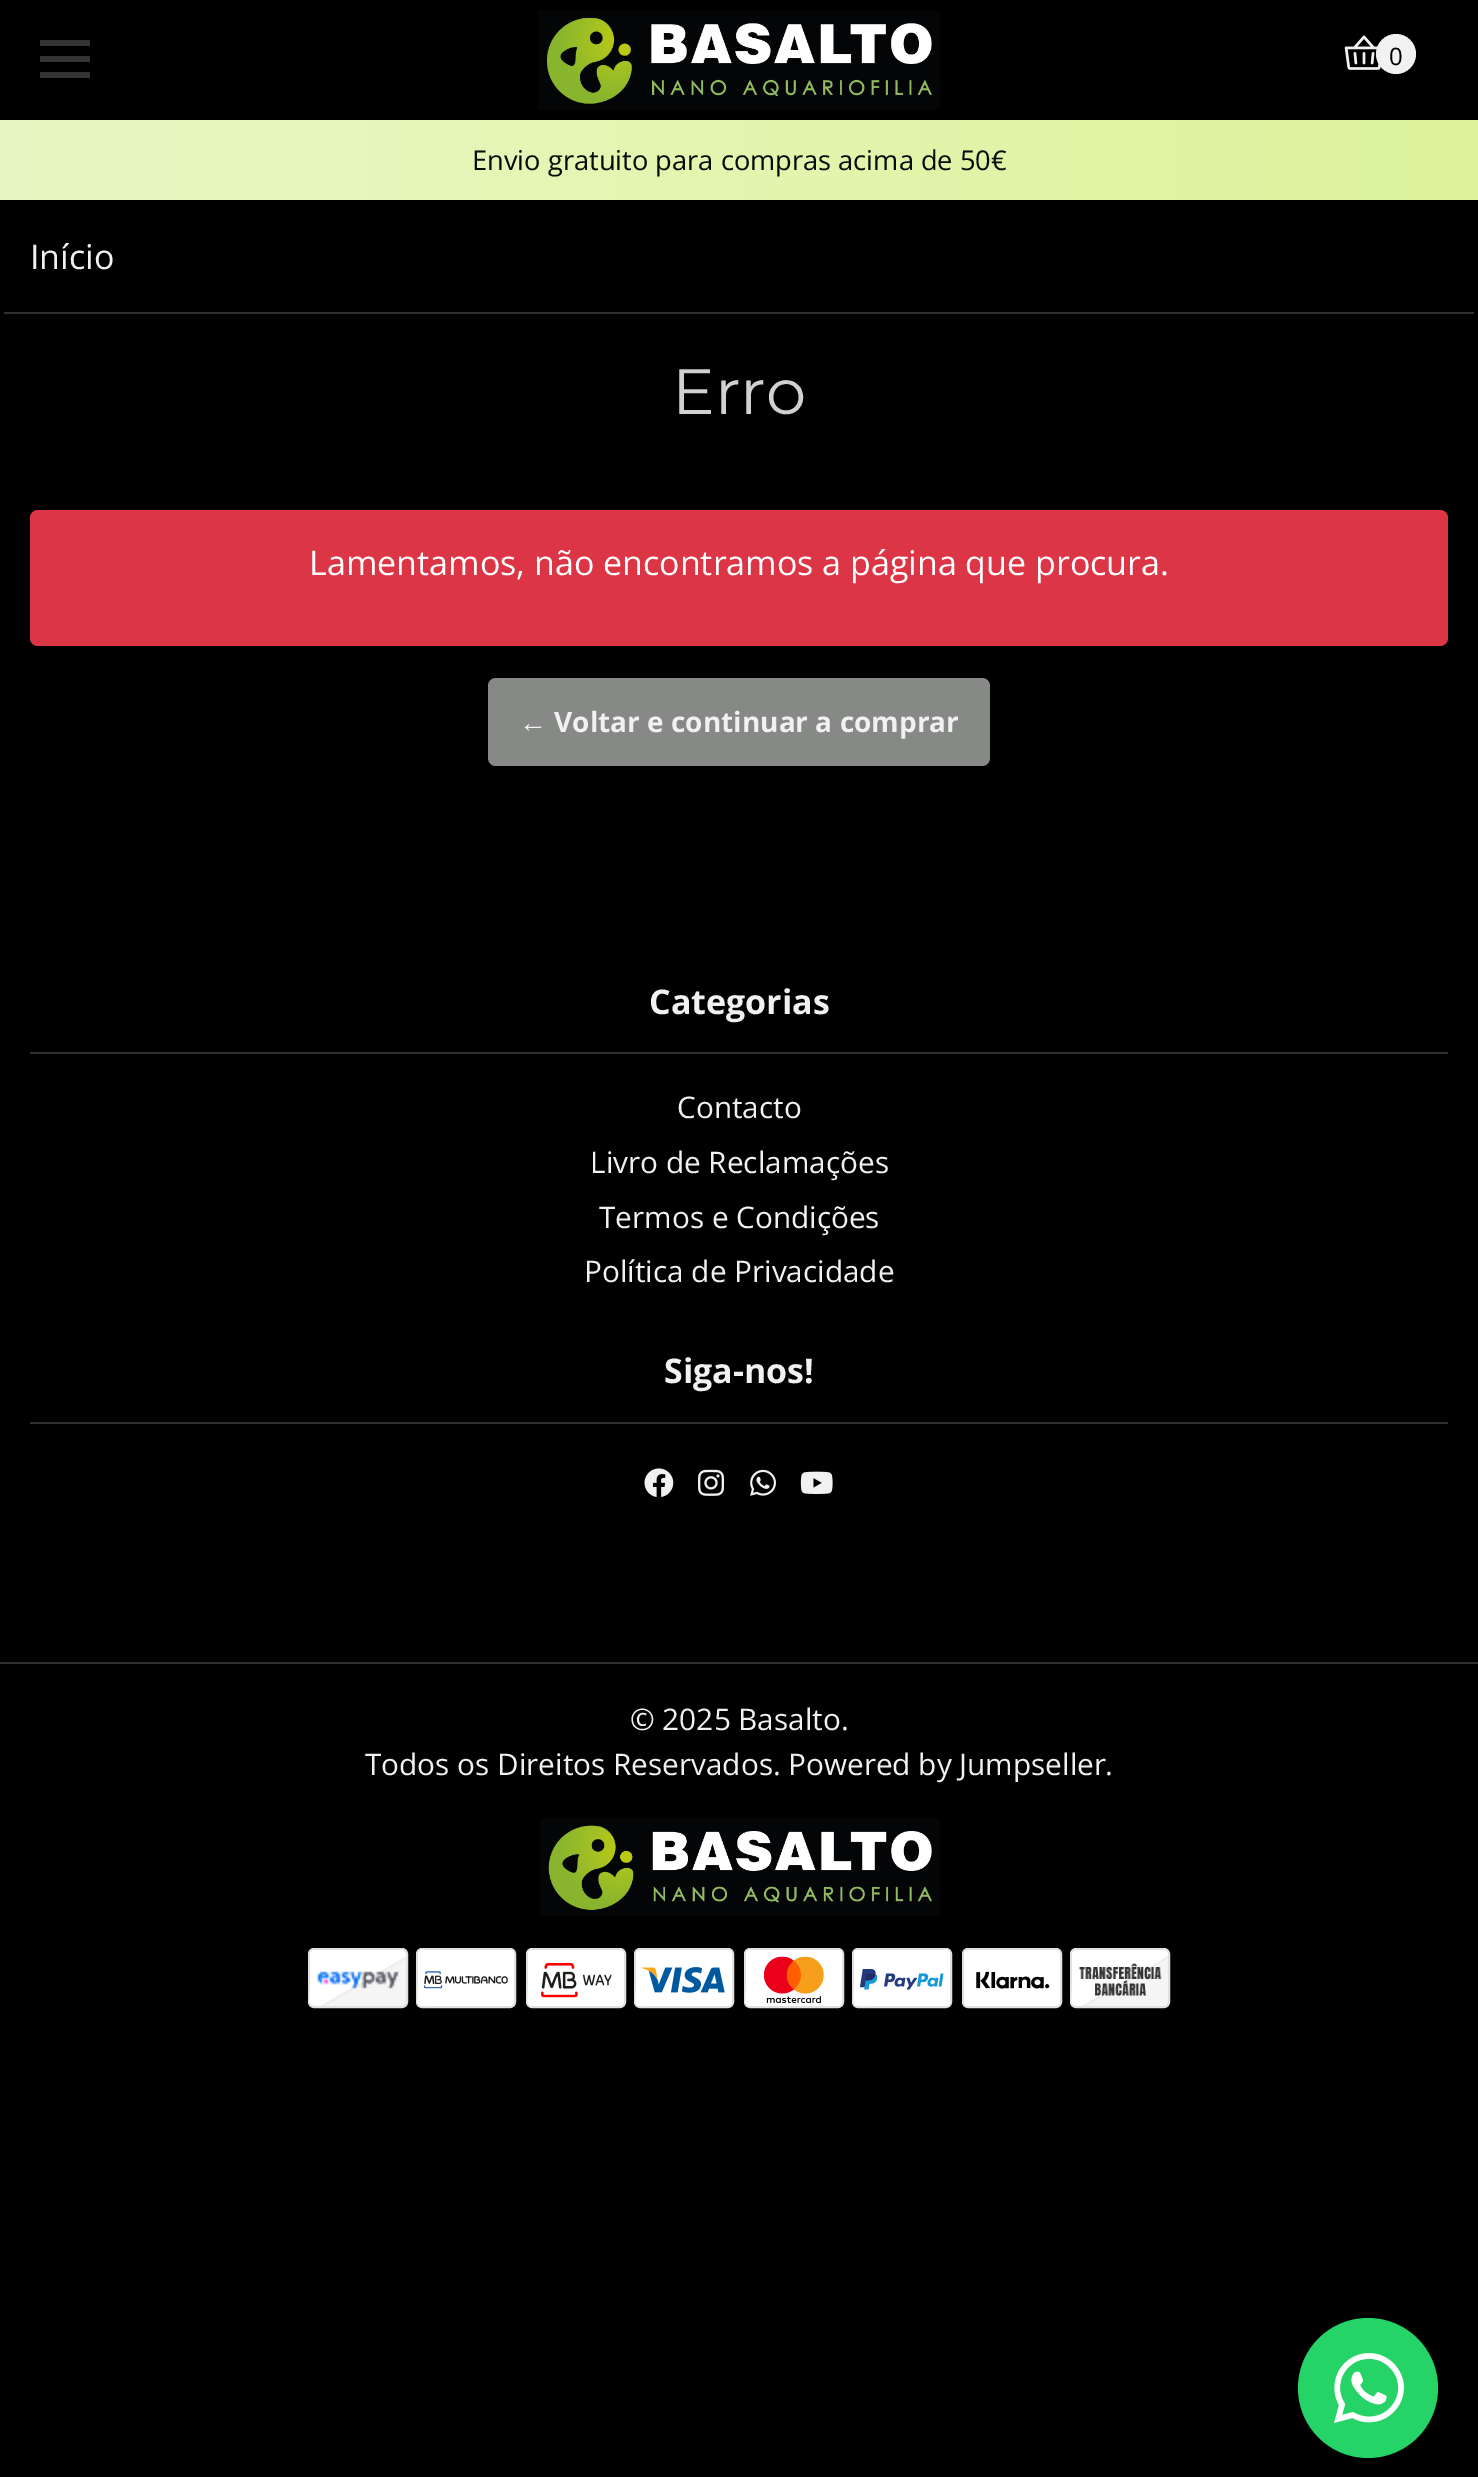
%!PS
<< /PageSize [1478 2477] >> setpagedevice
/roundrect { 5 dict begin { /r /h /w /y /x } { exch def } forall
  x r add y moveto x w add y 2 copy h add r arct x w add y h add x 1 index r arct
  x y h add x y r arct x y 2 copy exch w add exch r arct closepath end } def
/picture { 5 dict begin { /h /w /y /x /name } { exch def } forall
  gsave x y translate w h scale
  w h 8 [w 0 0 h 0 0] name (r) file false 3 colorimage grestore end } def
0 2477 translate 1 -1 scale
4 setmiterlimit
0 setgray
0 0 1478 2477 rectfill
0.2 setgray
40 40 50 6 rectfill
40 56 50 6 rectfill
40 72 50 6 rectfill
(img1.rgb) 538 10 402 100 picture
(img2.rgb) 1344 35 37 35 picture
0.945 setgray
newpath 1396 54 20 0 360 arc closepath fill
/OpenSans-Regular [24 0 0 -24 0 0] selectfont
0 setgray
1389 65 moveto (0) show
gsave newpath 0 120 moveto 1478 120 lineto 1478 200 lineto 0 200 lineto closepath clip newpath
<< /ShadingType 2 /ColorSpace /DeviceRGB /Coords [0 160 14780 160] /Extend [true true] /Function << /FunctionType 3 /Domain [0 1] /Functions [<< /FunctionType 2 /Domain [0 1] /C0 [0.91 0.973 0.769] /C1 [0.749 0.906 0.235] /N 1 >> << /FunctionType 2 /Domain [0 1] /C0 [0.749 0.906 0.235] /C1 [0.91 0.973 0.769] /N 1 >> << /FunctionType 2 /Domain [0 1] /C0 [0.91 0.973 0.769] /C1 [0.749 0.906 0.235] /N 1 >>] /Bounds [0.33 0.67] /Encode [0 1 0 1 0 1] >> >> shfill grestore
/OpenSans-Regular [27.25 0 0 -27.25 0 0] selectfont
0.035 setgray
472 170 moveto (Envio gratuito para compras acima de 50€) show
0.188 setgray
4 312 1470 2 rectfill
/OpenSans-Regular [34 0 0 -34 0 0] selectfont
0.945 setgray
30 269 moveto (Início) show
/Montserrat-Regular [64 0 0 -64 0 0] selectfont
0.824 0.82 0.82 setrgbcolor
672 414 moveto (Erro) show
0.863 0.208 0.271 setrgbcolor
30 510 1418 136 8 roundrect fill
/OpenSans-Regular [34 0 0 -34 0 0] selectfont
1 setgray
309 575 moveto (Lamentamos, não encontramos a página que procura.) show
0.525 0.537 0.525 setrgbcolor
488 678 502 88 8 roundrect fill
/LiberationSerif-Bold [28 0 0 -28 0 0] selectfont
0.945 setgray
519 732 moveto (←) show
/OpenSans-Bold [28 0 0 -28 0 0] selectfont
554 732 moveto (Voltar e continuar a comprar) show
0.188 setgray
30 1052 1418 2 rectfill
/OpenSans-Bold [34 0 0 -34 0 0] selectfont
0.945 setgray
649 1014 moveto (Categorias) show
/OpenSans-Regular [29.75 0 0 -29.75 0 0] selectfont
677 1118 moveto (Contacto) show
590 1173 moveto (Livro de Reclamações) show
599 1228 moveto (Termos e Condições) show
584 1282 moveto (Política de Privacidade) show
0.188 setgray
30 1422 1418 2 rectfill
/OpenSans-Bold [34 0 0 -34 0 0] selectfont
0.945 setgray
664 1383 moveto (Siga-nos!) show
(img3.rgb) 644 1468 30 29 picture
(img4.rgb) 698 1469 27 27 picture
(img5.rgb) 750 1469 26 27 picture
(img6.rgb) 800 1471 33 23 picture
0.188 setgray
0 1662 1478 2 rectfill
/OpenSans-Regular [29.75 0 0 -29.75 0 0] selectfont
0.945 setgray
630 1730 moveto (© 2025 Basalto.) show
365 1775 moveto (Todos os Direitos Reservados.) show
788 1775 moveto (Powered by Jumpseller) show
1105 1775 moveto (.) show
(img7.rgb) 540 1818 400 98 picture
0.961 setgray
309 1949 98 58 5 roundrect gsave fill grestore
0.882 setgray
2 setlinewidth
stroke
1 setgray
newpath 314 1950 moveto 402 1950 lineto 404 1950 406 1952 406 1954 curveto 406 1959 lineto 323 2006 lineto 306 2006 310 2006 310 1986 curveto 310 1954 lineto 310 1952 312 1950 314 1950 curveto closepath fill
gsave
310 1950 96 56 4 roundrect clip newpath
0.933 setgray
newpath 346.5 1763.5 moveto 445.5 1935 lineto 274 2034 lineto 175 1862.5 lineto closepath stroke
grestore
(img8.rgb) 317 1971 82 18 picture
0.882 setgray
417 1949 98 58 5 roundrect stroke
1 setgray
newpath 422 1950 moveto 510 1950 lineto 512 1950 514 1952 514 1954 curveto 514 1959 lineto 432 2006 lineto 414 2006 418 2007 418 1986 curveto 418 1954 lineto 418 1952 420 1950 422 1950 curveto closepath fill
(img9.rgb) 418 1950 96 56 picture
0.882 setgray
527 1949 98 58 5 roundrect stroke
1 setgray
newpath 532 1950 moveto 620 1950 lineto 622 1950 624 1952 624 1954 curveto 624 1958 lineto 541 2006 lineto 524 2006 528 2006 528 1986 curveto 528 1953 lineto 528 1951 530 1950 532 1950 curveto closepath fill
(img10.rgb) 528 1950 96 56 picture
0.882 setgray
635 1949 98 58 5 roundrect stroke
1 setgray
newpath 640 1950 moveto 728 1950 lineto 730 1950 732 1952 732 1954 curveto 732 1959 lineto 650 2006 lineto 632 2006 636 2007 636 1986 curveto 636 1954 lineto 636 1952 638 1950 640 1950 curveto closepath fill
(img11.rgb) 636 1950 96 56 picture
0.882 setgray
745 1949 98 58 5 roundrect stroke
1 setgray
newpath 750 1950 moveto 838 1950 lineto 840 1950 842 1952 842 1954 curveto 842 1958 lineto 759 2006 lineto 742 2006 746 2006 746 1986 curveto 746 1953 lineto 746 1951 748 1950 750 1950 curveto closepath fill
(img12.rgb) 746 1950 96 56 picture
0.882 setgray
853 1949 98 58 5 roundrect stroke
1 setgray
newpath 858 1950 moveto 946 1950 lineto 948 1950 950 1952 950 1954 curveto 950 1959 lineto 868 2006 lineto 850 2006 854 2007 854 1986 curveto 854 1954 lineto 854 1952 856 1950 858 1950 curveto closepath fill
(img13.rgb) 854 1950 96 56 picture
0.882 setgray
963 1949 98 58 5 roundrect stroke
(img14.rgb) 964 1950 96 56 picture
0.961 setgray
1071 1949 98 58 5 roundrect gsave fill grestore
0.882 setgray
stroke
1 setgray
newpath 1076 1950 moveto 1164 1950 lineto 1166 1950 1168 1952 1168 1954 curveto 1168 1959 lineto 1085 2006 lineto 1068 2006 1072 2006 1072 1986 curveto 1072 1954 lineto 1072 1952 1074 1950 1076 1950 curveto closepath fill
gsave
1072 1950 96 56 4 roundrect clip newpath
0.933 setgray
newpath 1108 1763.5 moveto 1207 1935 lineto 1035.5 2034 lineto 936.5 1862.5 lineto closepath stroke
grestore
(img15.rgb) 1078 1963 84 33 picture
0.145 0.827 0.4 setrgbcolor
newpath 1368 2388 70 0 360 arc closepath fill
(img16.rgb) 1334 2353 70 70 picture
showpage
